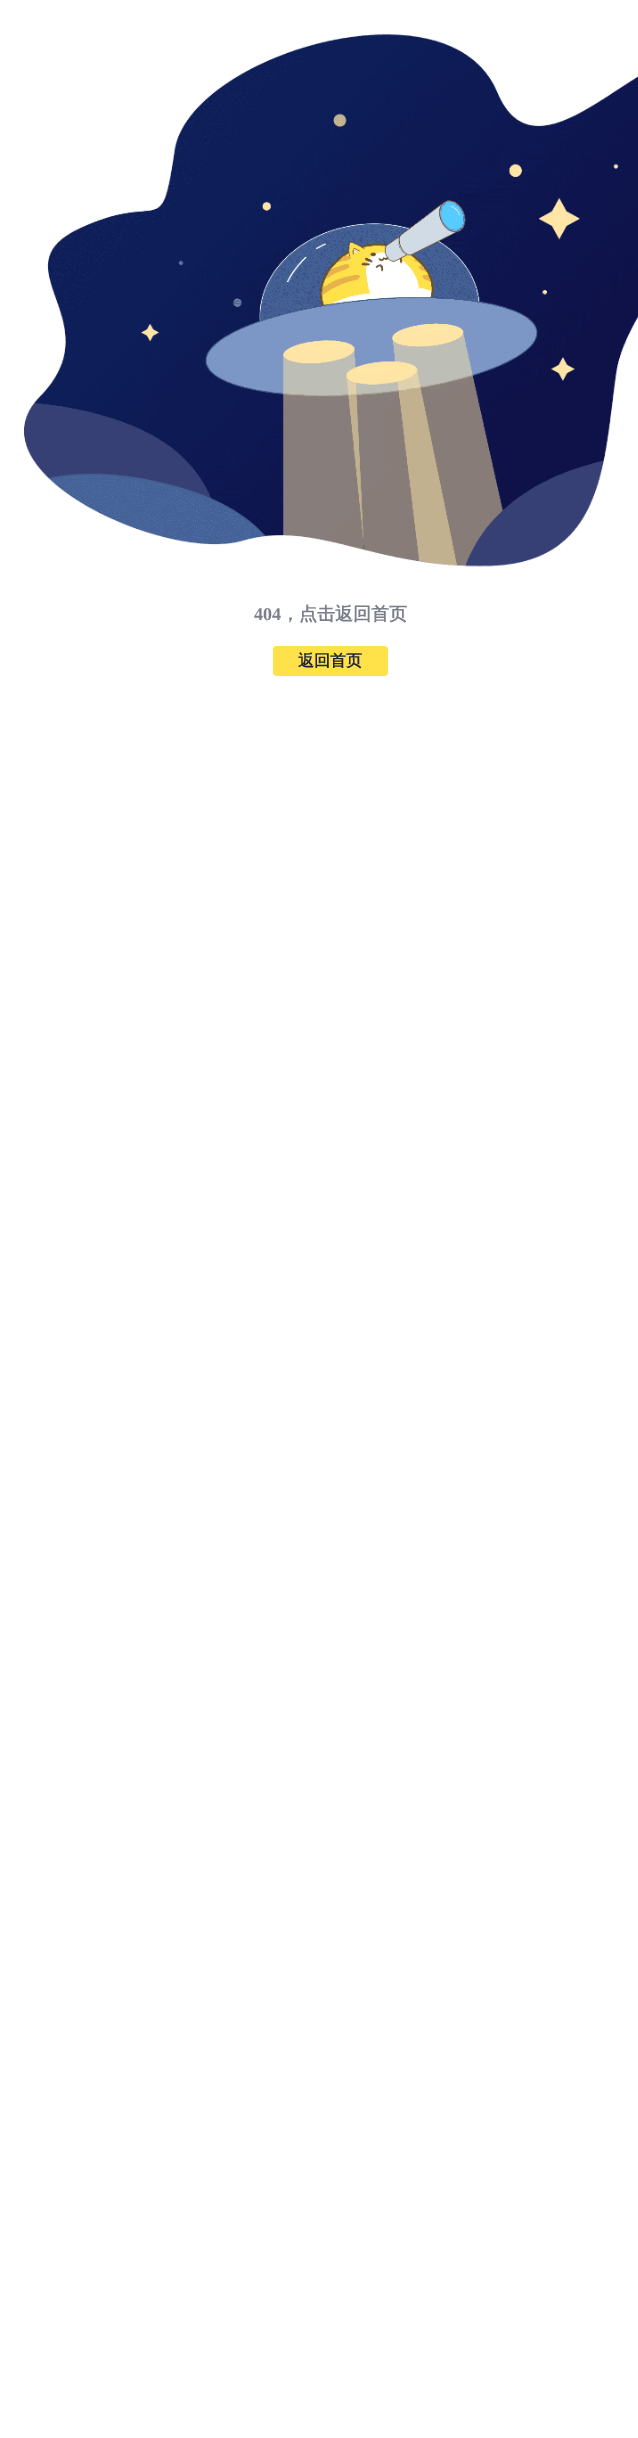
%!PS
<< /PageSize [638 2438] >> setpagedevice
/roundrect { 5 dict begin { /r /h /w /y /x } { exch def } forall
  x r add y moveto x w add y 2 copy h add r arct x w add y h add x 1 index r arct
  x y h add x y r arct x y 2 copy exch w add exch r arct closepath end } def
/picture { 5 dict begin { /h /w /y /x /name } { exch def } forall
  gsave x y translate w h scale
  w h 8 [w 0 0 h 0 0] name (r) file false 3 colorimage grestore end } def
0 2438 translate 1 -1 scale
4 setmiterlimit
1 setgray
0 0 638 2438 rectfill
(img1.rgb) 24 34 614 533 picture
/LiberationSerif-Bold [18 0 0 -18 0 0] selectfont
0.475 0.494 0.545 setrgbcolor
254 620 moveto (404) show
/WenQuanYiZenHei-Bold [18 0 0 -18 0 0] selectfont
281 620 moveto (，点击返回首页) show
1 0.886 0.286 setrgbcolor
273 646 115 30 4 roundrect fill
/WenQuanYiZenHei-Bold [16 0 0 -16 0 0] selectfont
0.125 0.141 0.216 setrgbcolor
298 666 moveto (返回首页) show
showpage
